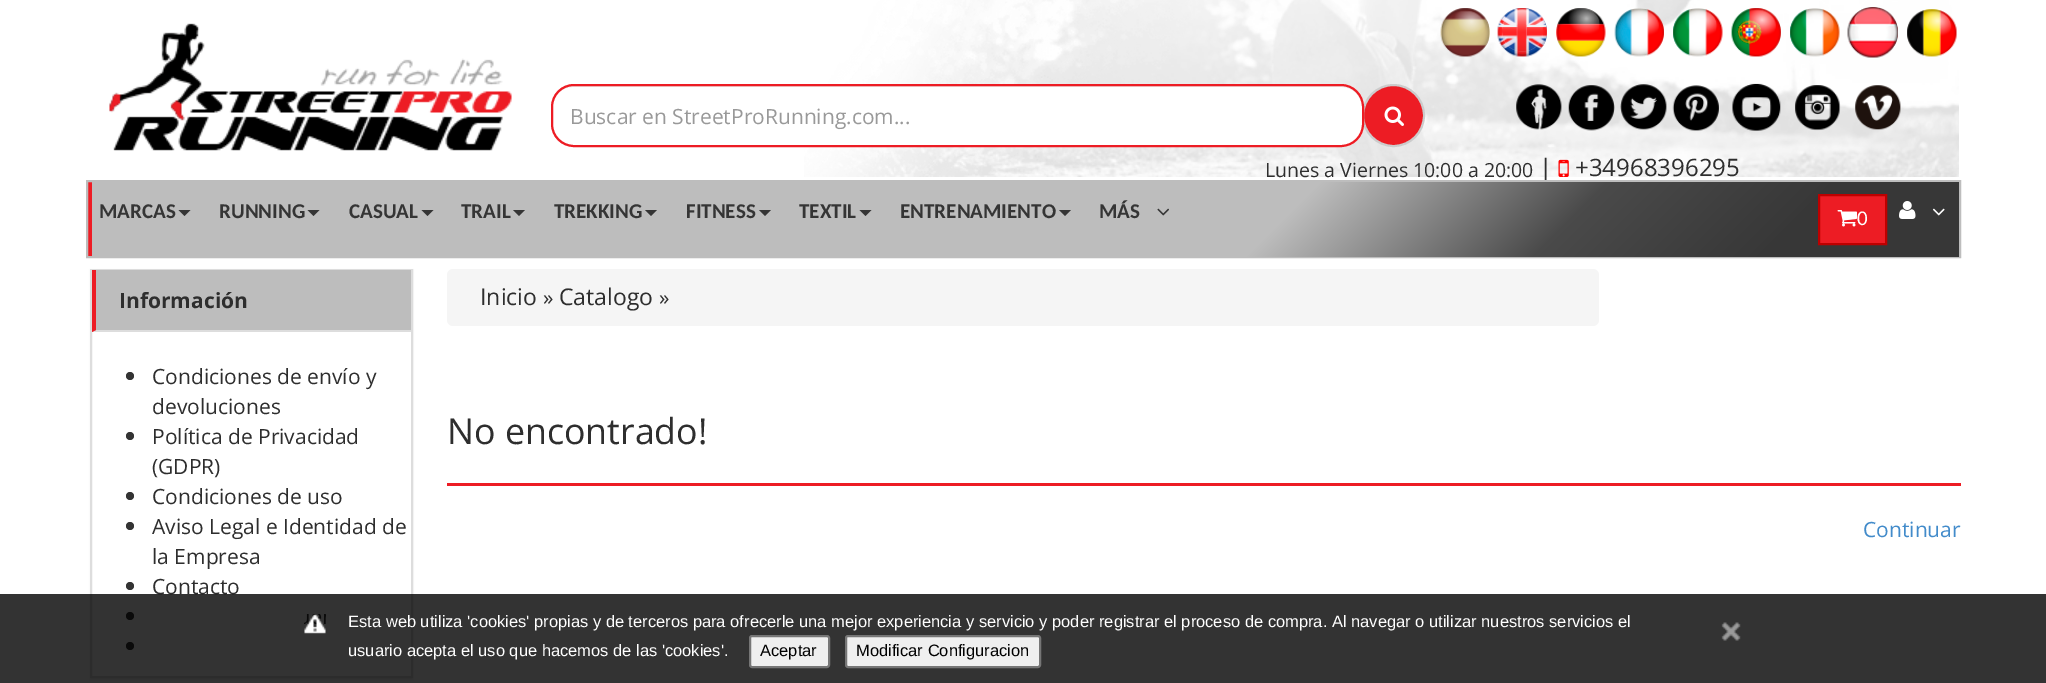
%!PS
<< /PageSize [2046 683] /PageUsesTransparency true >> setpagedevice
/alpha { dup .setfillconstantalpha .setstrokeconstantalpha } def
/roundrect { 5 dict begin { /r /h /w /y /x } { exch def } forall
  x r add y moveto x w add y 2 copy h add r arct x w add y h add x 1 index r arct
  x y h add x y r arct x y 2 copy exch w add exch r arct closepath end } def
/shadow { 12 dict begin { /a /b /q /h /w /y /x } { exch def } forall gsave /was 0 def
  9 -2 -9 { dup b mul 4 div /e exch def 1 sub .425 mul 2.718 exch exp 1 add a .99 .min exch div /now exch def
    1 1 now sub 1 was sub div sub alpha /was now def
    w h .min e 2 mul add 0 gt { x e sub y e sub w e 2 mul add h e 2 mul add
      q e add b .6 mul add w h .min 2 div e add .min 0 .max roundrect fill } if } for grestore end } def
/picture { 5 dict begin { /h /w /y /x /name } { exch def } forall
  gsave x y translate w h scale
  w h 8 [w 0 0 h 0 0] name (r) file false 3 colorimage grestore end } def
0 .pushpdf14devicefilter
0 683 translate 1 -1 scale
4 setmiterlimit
1 setgray
0 0 2046 683 rectfill
(img1.rgb) 804 0 1155 177 picture
(img2.rgb) 109 23 403 128 picture
0.929 0.11 0.141 setrgbcolor
newpath 1393.5 115.5 30.5 0 360 arc closepath gsave fill grestore
0.8 setgray
2 setlinewidth
stroke
1 setgray
551 84 813 63 23 roundrect fill
0.925 setgray
newpath 573 87 moveto 1341 87 lineto 1353 87 1362 96 1362 108 curveto 1362 107 lineto 1362 95 1353 86 1341 86 curveto 573 86 lineto 561 86 552 95 552 107 curveto 552 108 lineto 552 96 561 87 573 87 curveto closepath fill
0.929 0.11 0.141 setrgbcolor
552 85 811 61 22 roundrect stroke
/OpenSans-Regular [21 0 0 -21 0 0] selectfont
0.6 setgray
570 124 moveto (Buscar en StreetProRunning.com...) show
(img3.rgb) 1384 106 20 20 picture
(img4.rgb) 1440 8 50 49 picture
(img5.rgb) 1497 8 50 49 picture
(img6.rgb) 1556 8 50 49 picture
(img7.rgb) 1614 8 50 49 picture
(img8.rgb) 1673 8 50 49 picture
(img9.rgb) 1731 8 50 49 picture
(img10.rgb) 1790 8 50 49 picture
(img11.rgb) 1847 7 51 51 picture
(img12.rgb) 1907 9 50 48 picture
(img13.rgb) 1516 84 46 46 picture
(img14.rgb) 1568 85 47 46 picture
(img15.rgb) 1620 84 47 46 picture
(img16.rgb) 1672 85 47 46 picture
(img17.rgb) 1732 83 49 48 picture
(img18.rgb) 1795 85 46 46 picture
(img19.rgb) 1855 85 46 45 picture
/OpenSans-Regular [19.5 0 0 -19.5 0 0] selectfont
0.18 setgray
1265 177 moveto (Lunes a Viernes 10:00 a 20:00) show
/OpenSans-Regular [24 0 0 -24 0 0] selectfont
1539 176 moveto (|) show
(img20.rgb) 1558 159 11 18 picture
1575 176 moveto (+34968396295) show
0.929 0.11 0.141 setrgbcolor
88 182 4 74 rectfill
0.741 setgray
87 181 1873 76 rectstroke
92 182 18 74 rectfill
gsave newpath 110 182 moveto 1959 182 lineto 1959 257 lineto 110 257 lineto closepath clip newpath
<< /ShadingType 2 /ColorSpace /DeviceRGB /Coords [553 -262 1515 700] /Extend [true true] /Function << /FunctionType 3 /Domain [0 1] /Functions [<< /FunctionType 2 /Domain [0 1] /C0 [0.741 0.741 0.741] /C1 [0.741 0.741 0.741] /N 1 >> << /FunctionType 2 /Domain [0 1] /C0 [0.741 0.741 0.741] /C1 [0.29 0.29 0.29] /N 1 >> << /FunctionType 2 /Domain [0 1] /C0 [0.29 0.29 0.29] /C1 [0.216 0.216 0.216] /N 1 >> << /FunctionType 2 /Domain [0 1] /C0 [0.216 0.216 0.216] /C1 [0.216 0.216 0.216] /N 1 >>] /Bounds [0.63 0.78 0.9] /Encode [0 1 0 1 0 1 0 1] >> >> shfill grestore
/Carlito-Bold [21 0 0 -21 0 0] selectfont
0.208 setgray
99 218 moveto (MARCAS) show
newpath 178.5 210 moveto 190.5 210 lineto 184.5 216 lineto closepath fill
219 218 moveto (RUNNING) show
newpath 307.5 210 moveto 319.5 210 lineto 313.5 216 lineto closepath fill
349 218 moveto (CASUAL) show
newpath 421.5 210 moveto 433.5 210 lineto 427.5 216 lineto closepath fill
461 218 moveto (TRAIL) show
newpath 513 210 moveto 525 210 lineto 519 216 lineto closepath fill
554 218 moveto (TREKKING) show
newpath 645 210 moveto 657 210 lineto 651 216 lineto closepath fill
686 218 moveto (FITNESS) show
newpath 759 210 moveto 771 210 lineto 765 216 lineto closepath fill
799 218 moveto (TEXTIL) show
newpath 859.5 210 moveto 871.5 210 lineto 865.5 216 lineto closepath fill
900 218 moveto (ENTRENAMIENTO) show
newpath 1059 210 moveto 1071 210 lineto 1065 216 lineto closepath fill
1099 218 moveto (MÁS) show
(img21.rgb) 1157 208 12 8 picture
0.929 0.11 0.141 setrgbcolor
newpath 1819 195 moveto 1886 195 lineto 1886 244 lineto 1819 244 lineto closepath gsave fill grestore
0.741 0 0 setrgbcolor
stroke
(img22.rgb) 1837 210 20 17 picture
/Carlito-Regular [21 0 0 -21 0 0] selectfont
1 setgray
1857 225 moveto (0) show
(img23.rgb) 1899 201 17 18 picture
(img24.rgb) 1932 208 13 8 picture
0 setgray
90 270 323 410 0 1 0.05 shadow
1 setgray
92 332 319 344 rectfill
0.867 setgray
91 270 321 407 rectstroke
0.741 setgray
92 270 319 62 rectfill
0.867 setgray
newpath 411 332 moveto 92 332 lineto 96 330 lineto 411 330 lineto closepath fill
0.929 0.11 0.141 setrgbcolor
newpath 92 332 moveto 92 270 lineto 96 270 lineto 96 330 lineto closepath fill
/OpenSans-Bold [21 0 0 -21 0 0] selectfont
0.18 setgray
119 308 moveto (Información) show
0.2 setgray
newpath 130 376 4 0 360 arc closepath fill
/OpenSans-Regular [21 0 0 -21 0 0] selectfont
0.18 setgray
152 384 moveto (Condiciones de envío y) show
152 414 moveto (devoluciones) show
0.2 setgray
newpath 130 436 4 0 360 arc closepath fill
0.18 setgray
152 444 moveto (Política de Privacidad) show
152 474 moveto (\(GDPR\)) show
0.2 setgray
newpath 130 496 4 0 360 arc closepath fill
0.18 setgray
152 504 moveto (Condiciones de uso) show
0.2 setgray
newpath 130 526 4 0 360 arc closepath fill
0.18 setgray
152 534 moveto (Aviso Legal e Identidad de) show
152 564 moveto (la Empresa) show
0.2 setgray
newpath 130 586 4 0 360 arc closepath fill
0.18 setgray
152 594 moveto (Contacto) show
0.2 setgray
newpath 130 616 4 0 360 arc closepath fill
newpath 130 646 4 0 360 arc closepath fill
0.961 setgray
447 269 1152 57 6 roundrect fill
/OpenSans-Regular [23 0 0 -23 0 0] selectfont
0.18 setgray
480 305 moveto (Inicio) show
/OpenSans-Regular [21 0 0 -21 0 0] selectfont
543 305 moveto (») show
/OpenSans-Regular [23 0 0 -23 0 0] selectfont
559 305 moveto (Catalogo) show
/OpenSans-Regular [21 0 0 -21 0 0] selectfont
659 305 moveto (») show
0.929 0.11 0.141 setrgbcolor
447 483 1514 3 rectfill
/OpenSans-Regular [35.75 0 0 -35.75 0 0] selectfont
0.18 setgray
447 444 moveto (No encontrado!) show
/OpenSans-Regular [21 0 0 -21 0 0] selectfont
0.259 0.545 0.792 setrgbcolor
1863 537 moveto (Continuar) show
0.8 alpha
0 setgray
0 594 2046 89 rectfill
1 alpha
(img25.rgb) 304 614 22 20 picture
/LiberationSans-Regular [16.5 0 0 -16.5 0 0] selectfont
1 setgray
348 627 moveto (Esta web utiliza 'cookies' propias y de terceros para ofrecerle una mejor experiencia y servicio y poder registrar el proceso de compra. Al navegar o utilizar nuestros servicios el) show
(img26.rgb) 1721 622 20 19 picture
348 656 moveto (usuario acepta el uso que hacemos de las 'cookies'.) show
0.937 setgray
750 636 79 31 2 roundrect gsave fill grestore
0.463 setgray
stroke
0 setgray
760 656 moveto (Aceptar) show
0.937 setgray
846 636 194 31 2 roundrect gsave fill grestore
0.463 setgray
stroke
0 setgray
856 656 moveto (Modificar Configuracion) show
.poppdf14devicefilter showpage
